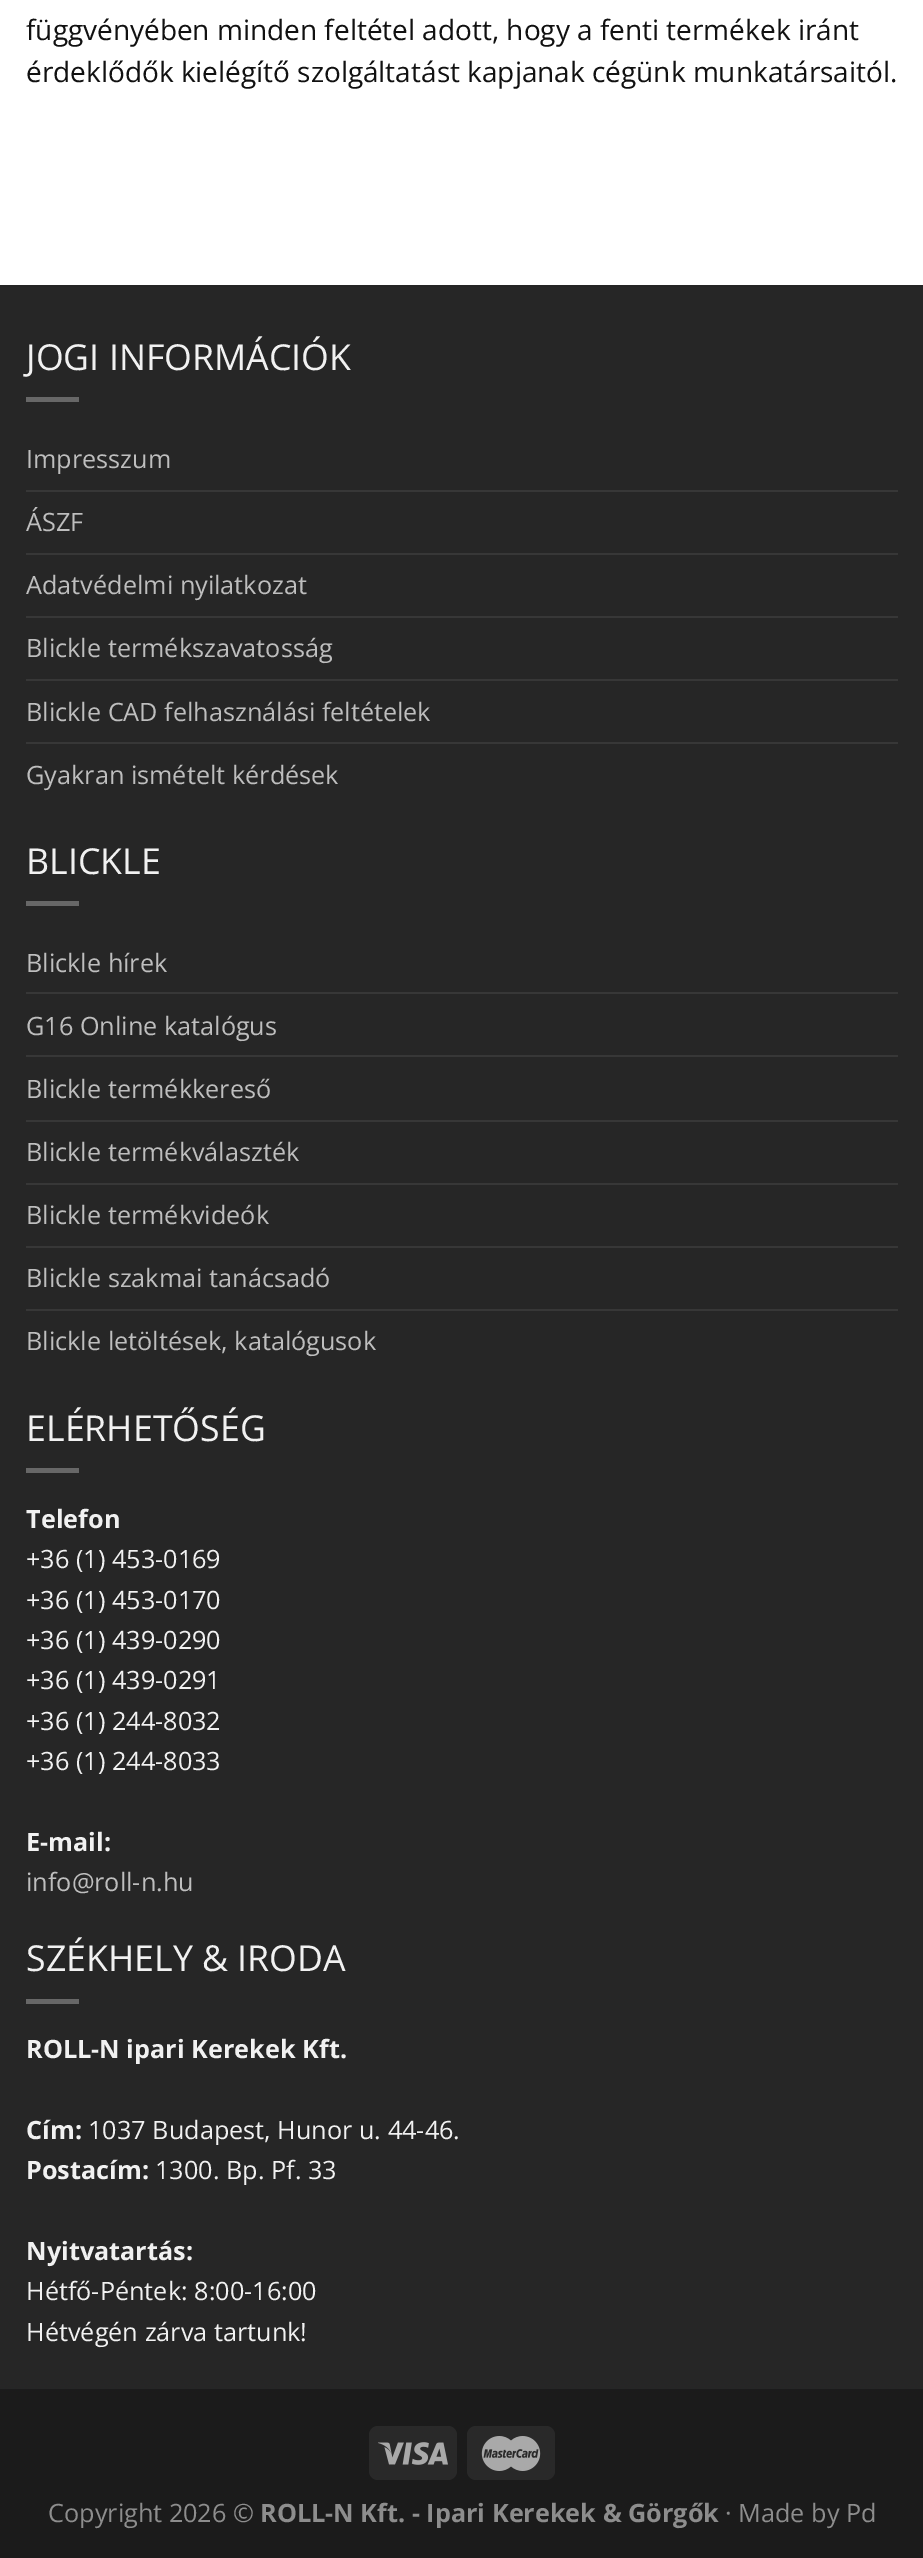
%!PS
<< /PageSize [923 2558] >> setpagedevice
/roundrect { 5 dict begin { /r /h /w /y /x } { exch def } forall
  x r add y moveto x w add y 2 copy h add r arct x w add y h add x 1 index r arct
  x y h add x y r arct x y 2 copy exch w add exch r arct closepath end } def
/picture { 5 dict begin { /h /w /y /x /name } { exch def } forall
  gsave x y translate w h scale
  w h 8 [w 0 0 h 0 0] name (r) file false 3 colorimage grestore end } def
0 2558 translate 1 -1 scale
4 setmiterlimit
1 setgray
0 0 923 2558 rectfill
/OpenSans-Regular [28 0 0 -28 0 0] selectfont
0.067 setgray
26 40 moveto (függvényében minden feltétel adott, hogy a fenti termékek iránt) show
26 82 moveto (érdeklődők kielégítő szolgáltatást kapjanak cégünk munkatársaitól.) show
0.149 setgray
0 287 923 2102 rectfill
0.141 setgray
0 285 923 2 rectfill
/OpenSans-Regular [35.75 0 0 -35.75 0 0] selectfont
0.945 setgray
26 370 moveto (JOGI INFORMÁCIÓK) show
0.404 setgray
26 397 53 5 rectfill
/OpenSans-Regular [25.25 0 0 -25.25 0 0] selectfont
0.745 setgray
26 468 moveto (Impresszum) show
0.216 setgray
26 490 872 2 rectfill
0.745 setgray
26 531 moveto (ÁSZF) show
0.216 setgray
26 553 872 2 rectfill
0.745 setgray
26 594 moveto (Adatvédelmi nyilatkozat) show
0.216 setgray
26 616 872 2 rectfill
0.745 setgray
26 657 moveto (Blickle termékszavatosság) show
0.216 setgray
26 679 872 2 rectfill
0.745 setgray
26 721 moveto (Blickle CAD felhasználási feltételek) show
0.216 setgray
26 742 872 2 rectfill
0.745 setgray
26 784 moveto (Gyakran ismételt kérdések) show
/OpenSans-Regular [35.75 0 0 -35.75 0 0] selectfont
0.945 setgray
26 874 moveto (BLICKLE) show
0.404 setgray
26 901 53 5 rectfill
/OpenSans-Regular [25.25 0 0 -25.25 0 0] selectfont
0.745 setgray
26 972 moveto (Blickle hírek) show
0.216 setgray
26 992 872 2 rectfill
0.745 setgray
26 1035 moveto (G16 Online katalógus) show
0.216 setgray
26 1055 872 2 rectfill
0.745 setgray
26 1098 moveto (Blickle termékkereső) show
0.216 setgray
26 1120 872 2 rectfill
0.745 setgray
26 1161 moveto (Blickle termékválaszték) show
0.216 setgray
26 1183 872 2 rectfill
0.745 setgray
26 1224 moveto (Blickle termékvideók) show
0.216 setgray
26 1246 872 2 rectfill
0.745 setgray
26 1287 moveto (Blickle szakmai tanácsadó) show
0.216 setgray
26 1309 872 2 rectfill
0.745 setgray
26 1350 moveto (Blickle letöltések, katalógusok) show
/OpenSans-Regular [35.75 0 0 -35.75 0 0] selectfont
0.945 setgray
26 1441 moveto (ELÉRHETŐSÉG) show
0.404 setgray
26 1468 53 5 rectfill
/OpenSans-Bold [25.25 0 0 -25.25 0 0] selectfont
0.945 setgray
26 1528 moveto (Telefon) show
/OpenSans-Regular [25.25 0 0 -25.25 0 0] selectfont
26 1568 moveto (+36 \(1\) 453-0169) show
26 1609 moveto (+36 \(1\) 453-0170) show
26 1649 moveto (+36 \(1\) 439-0290) show
26 1689 moveto (+36 \(1\) 439-0291) show
26 1730 moveto (+36 \(1\) 244-8032) show
26 1770 moveto (+36 \(1\) 244-8033) show
/OpenSans-Bold [25.25 0 0 -25.25 0 0] selectfont
26 1851 moveto (E-mail:) show
/OpenSans-Regular [25.25 0 0 -25.25 0 0] selectfont
0.745 setgray
26 1891 moveto (info@roll-n.hu) show
/OpenSans-Regular [35.75 0 0 -35.75 0 0] selectfont
0.945 setgray
26 1971 moveto (SZÉKHELY & IRODA) show
0.404 setgray
26 1999 53 5 rectfill
/OpenSans-Bold [25.25 0 0 -25.25 0 0] selectfont
0.945 setgray
26 2058 moveto (ROLL-N ipari Kerekek Kft.) show
26 2139 moveto (Cím:) show
/OpenSans-Regular [25.25 0 0 -25.25 0 0] selectfont
88 2139 moveto (1037 Budapest, Hunor u. 44-46.) show
/OpenSans-Bold [25.25 0 0 -25.25 0 0] selectfont
26 2179 moveto (Postacím:) show
/OpenSans-Regular [25.25 0 0 -25.25 0 0] selectfont
155 2179 moveto (1300. Bp. Pf. 33) show
/OpenSans-Bold [25.25 0 0 -25.25 0 0] selectfont
26 2260 moveto (Nyitvatartás:) show
/OpenSans-Regular [25.25 0 0 -25.25 0 0] selectfont
26 2300 moveto (Hétfő-Péntek: 8:00-16:00) show
26 2341 moveto (Hétvégén zárva tartunk!) show
0.106 setgray
0 2389 923 169 rectfill
0.161 setgray
369 2426 88 54 9 roundrect fill
(img1.rgb) 378 2442 70 23 picture
467 2426 88 54 9 roundrect fill
(img2.rgb) 481 2436 60 35 picture
0.553 setgray
48 2522 moveto (Copyright 2026 ©) show
/OpenSans-Bold [25.25 0 0 -25.25 0 0] selectfont
260 2522 moveto (ROLL-N Kft. - Ipari Kerekek & Görgők) show
/OpenSans-Regular [25.25 0 0 -25.25 0 0] selectfont
725 2522 moveto (· Made by Pd) show
showpage
